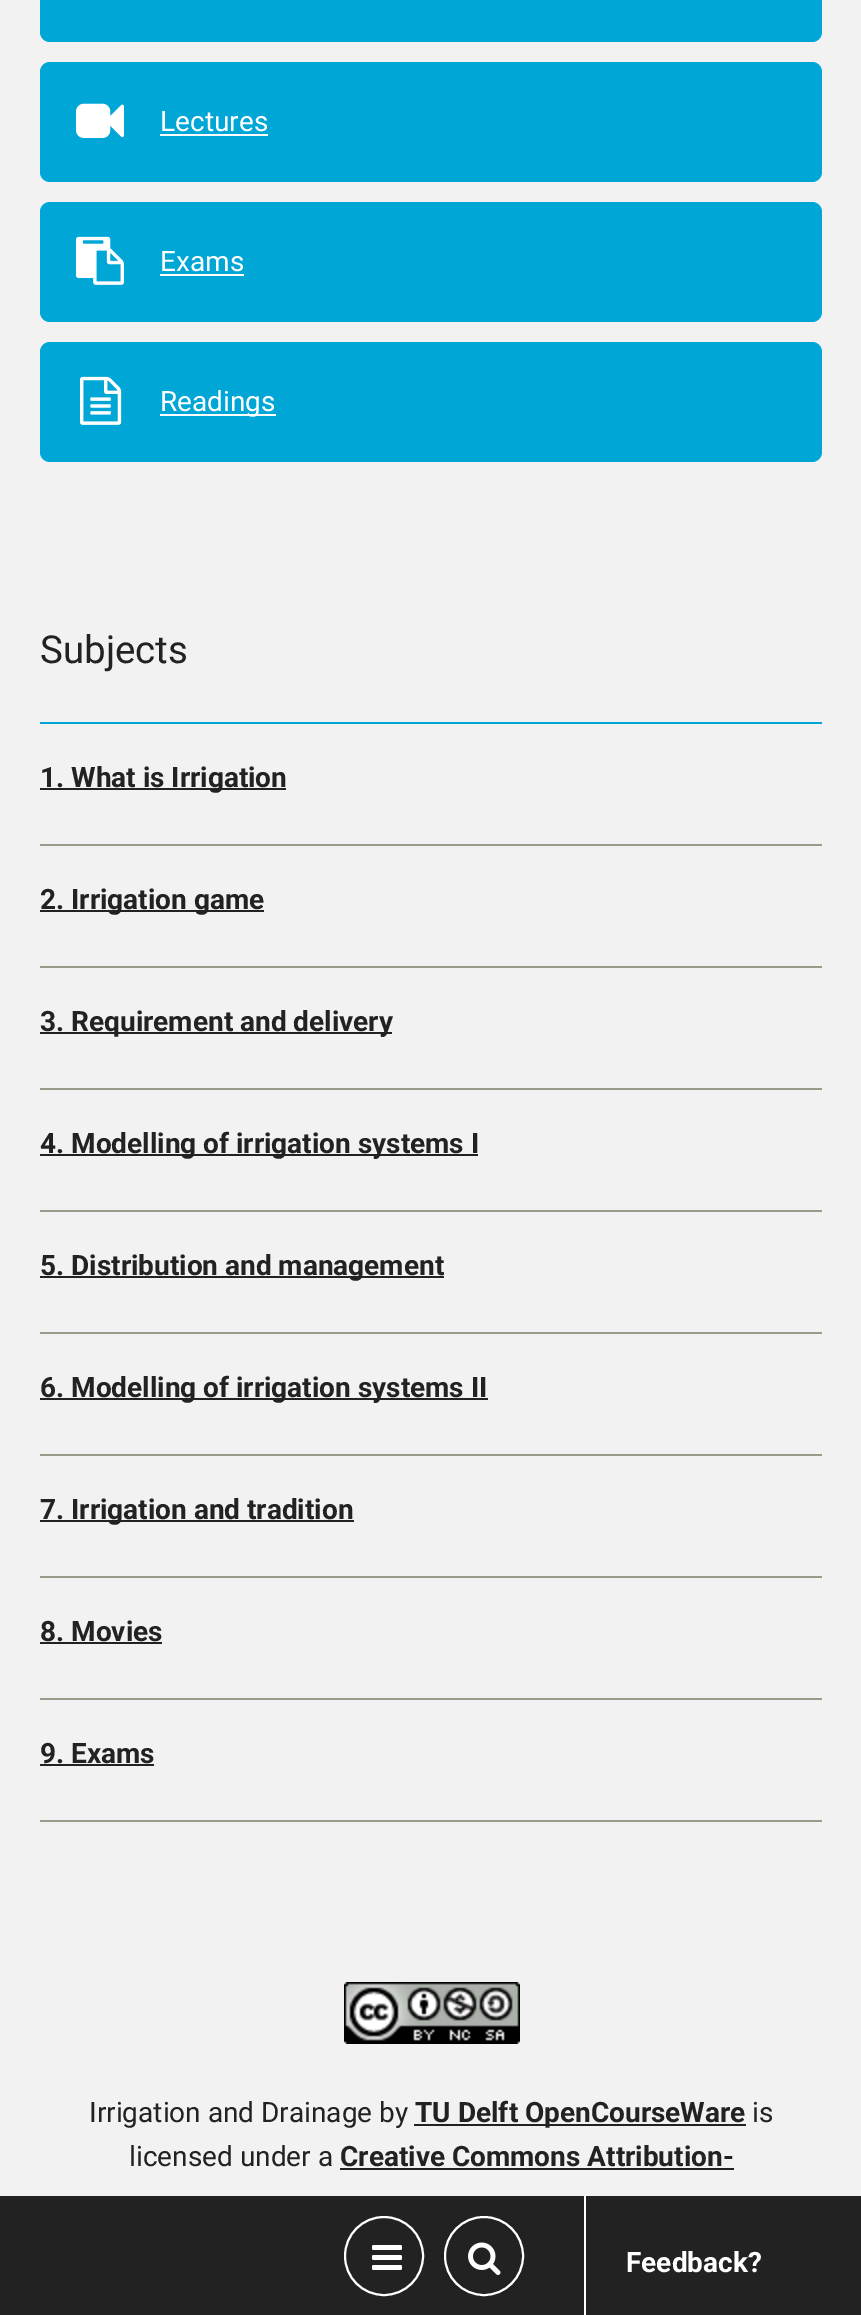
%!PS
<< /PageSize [861 2315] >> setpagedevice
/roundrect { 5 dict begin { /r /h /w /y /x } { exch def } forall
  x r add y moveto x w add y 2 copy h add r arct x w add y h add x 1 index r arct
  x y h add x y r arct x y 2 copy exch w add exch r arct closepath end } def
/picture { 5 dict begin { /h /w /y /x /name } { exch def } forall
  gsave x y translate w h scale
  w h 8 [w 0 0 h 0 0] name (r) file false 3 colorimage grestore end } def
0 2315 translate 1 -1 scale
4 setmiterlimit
0.949 setgray
0 0 861 2315 rectfill
0 0.651 0.839 setrgbcolor
40 -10 782 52 10 roundrect fill
40 62 782 120 10 roundrect fill
(img1.rgb) 76 103 48 35 picture
/Roboto-Regular [28 0 0 -28 0 0] selectfont
1 setgray
160 131 moveto (Lectures) show
160 134 108 2 rectfill
0 0.651 0.839 setrgbcolor
40 202 782 120 10 roundrect fill
(img2.rgb) 76 236 48 49 picture
1 setgray
160 271 moveto (Exams) show
160 274 84 2 rectfill
0 0.651 0.839 setrgbcolor
40 342 782 120 10 roundrect fill
(img3.rgb) 80 376 42 49 picture
1 setgray
160 414 116 2 rectfill
160 411 moveto (Readings) show
0 0.651 0.839 setrgbcolor
40 722 782 2 rectfill
/Roboto-Regular [38.5 0 0 -38.5 0 0] selectfont
0.133 setgray
40 663 moveto (Subjects) show
0.608 0.608 0.545 setrgbcolor
40 844 782 2 rectfill
0.133 setgray
40 788 246 2 rectfill
/Roboto-Bold [28 0 0 -28 0 0] selectfont
40 787 moveto (1. What is Irrigation) show
0.608 0.608 0.545 setrgbcolor
40 966 782 2 rectfill
0.133 setgray
40 910 224 2 rectfill
40 909 moveto (2. Irrigation game) show
0.608 0.608 0.545 setrgbcolor
40 1088 782 2 rectfill
0.133 setgray
40 1032 352 2 rectfill
40 1031 moveto (3. Requirement and delivery) show
0.608 0.608 0.545 setrgbcolor
40 1210 782 2 rectfill
0.133 setgray
40 1154 438 2 rectfill
40 1153 moveto (4. Modelling of irrigation systems I) show
0.608 0.608 0.545 setrgbcolor
40 1332 782 2 rectfill
0.133 setgray
40 1276 404 2 rectfill
40 1275 moveto (5. Distribution and management) show
0.608 0.608 0.545 setrgbcolor
40 1454 782 2 rectfill
0.133 setgray
40 1398 448 2 rectfill
40 1397 moveto (6. Modelling of irrigation systems II) show
0.608 0.608 0.545 setrgbcolor
40 1576 782 2 rectfill
0.133 setgray
40 1520 314 2 rectfill
40 1519 moveto (7. Irrigation and tradition) show
0.608 0.608 0.545 setrgbcolor
40 1698 782 2 rectfill
0.133 setgray
40 1641 moveto (8. Movies) show
40 1642 122 2 rectfill
0.608 0.608 0.545 setrgbcolor
40 1820 782 2 rectfill
0.133 setgray
40 1763 moveto (9. Exams) show
40 1764 114 2 rectfill
(img4.rgb) 344 1982 176 62 picture
/Roboto-Regular [28 0 0 -28 0 0] selectfont
89 2122 moveto (Irrigation and Drainage by) show
414 2124 332 2 rectfill
/Roboto-Bold [28 0 0 -28 0 0] selectfont
415 2122 moveto (TU Delft OpenCourseWare) show
/Roboto-Regular [28 0 0 -28 0 0] selectfont
752 2122 moveto (is) show
129 2166 moveto (licensed under a) show
/Roboto-Bold [28 0 0 -28 0 0] selectfont
340 2166 moveto (Creative Commons Attribution-) show
340 2168 394 2 rectfill
0 2196 861 119 rectfill
1 setgray
2 setlinewidth
newpath 384 2256 39 0 360 arc closepath stroke
(img5.rgb) 372 2245 30 25 picture
newpath 484 2256 39 0 360 arc closepath stroke
(img6.rgb) 468 2242 33 33 picture
584 2196 2 119 rectfill
626 2272 moveto (Feedback?) show
showpage
